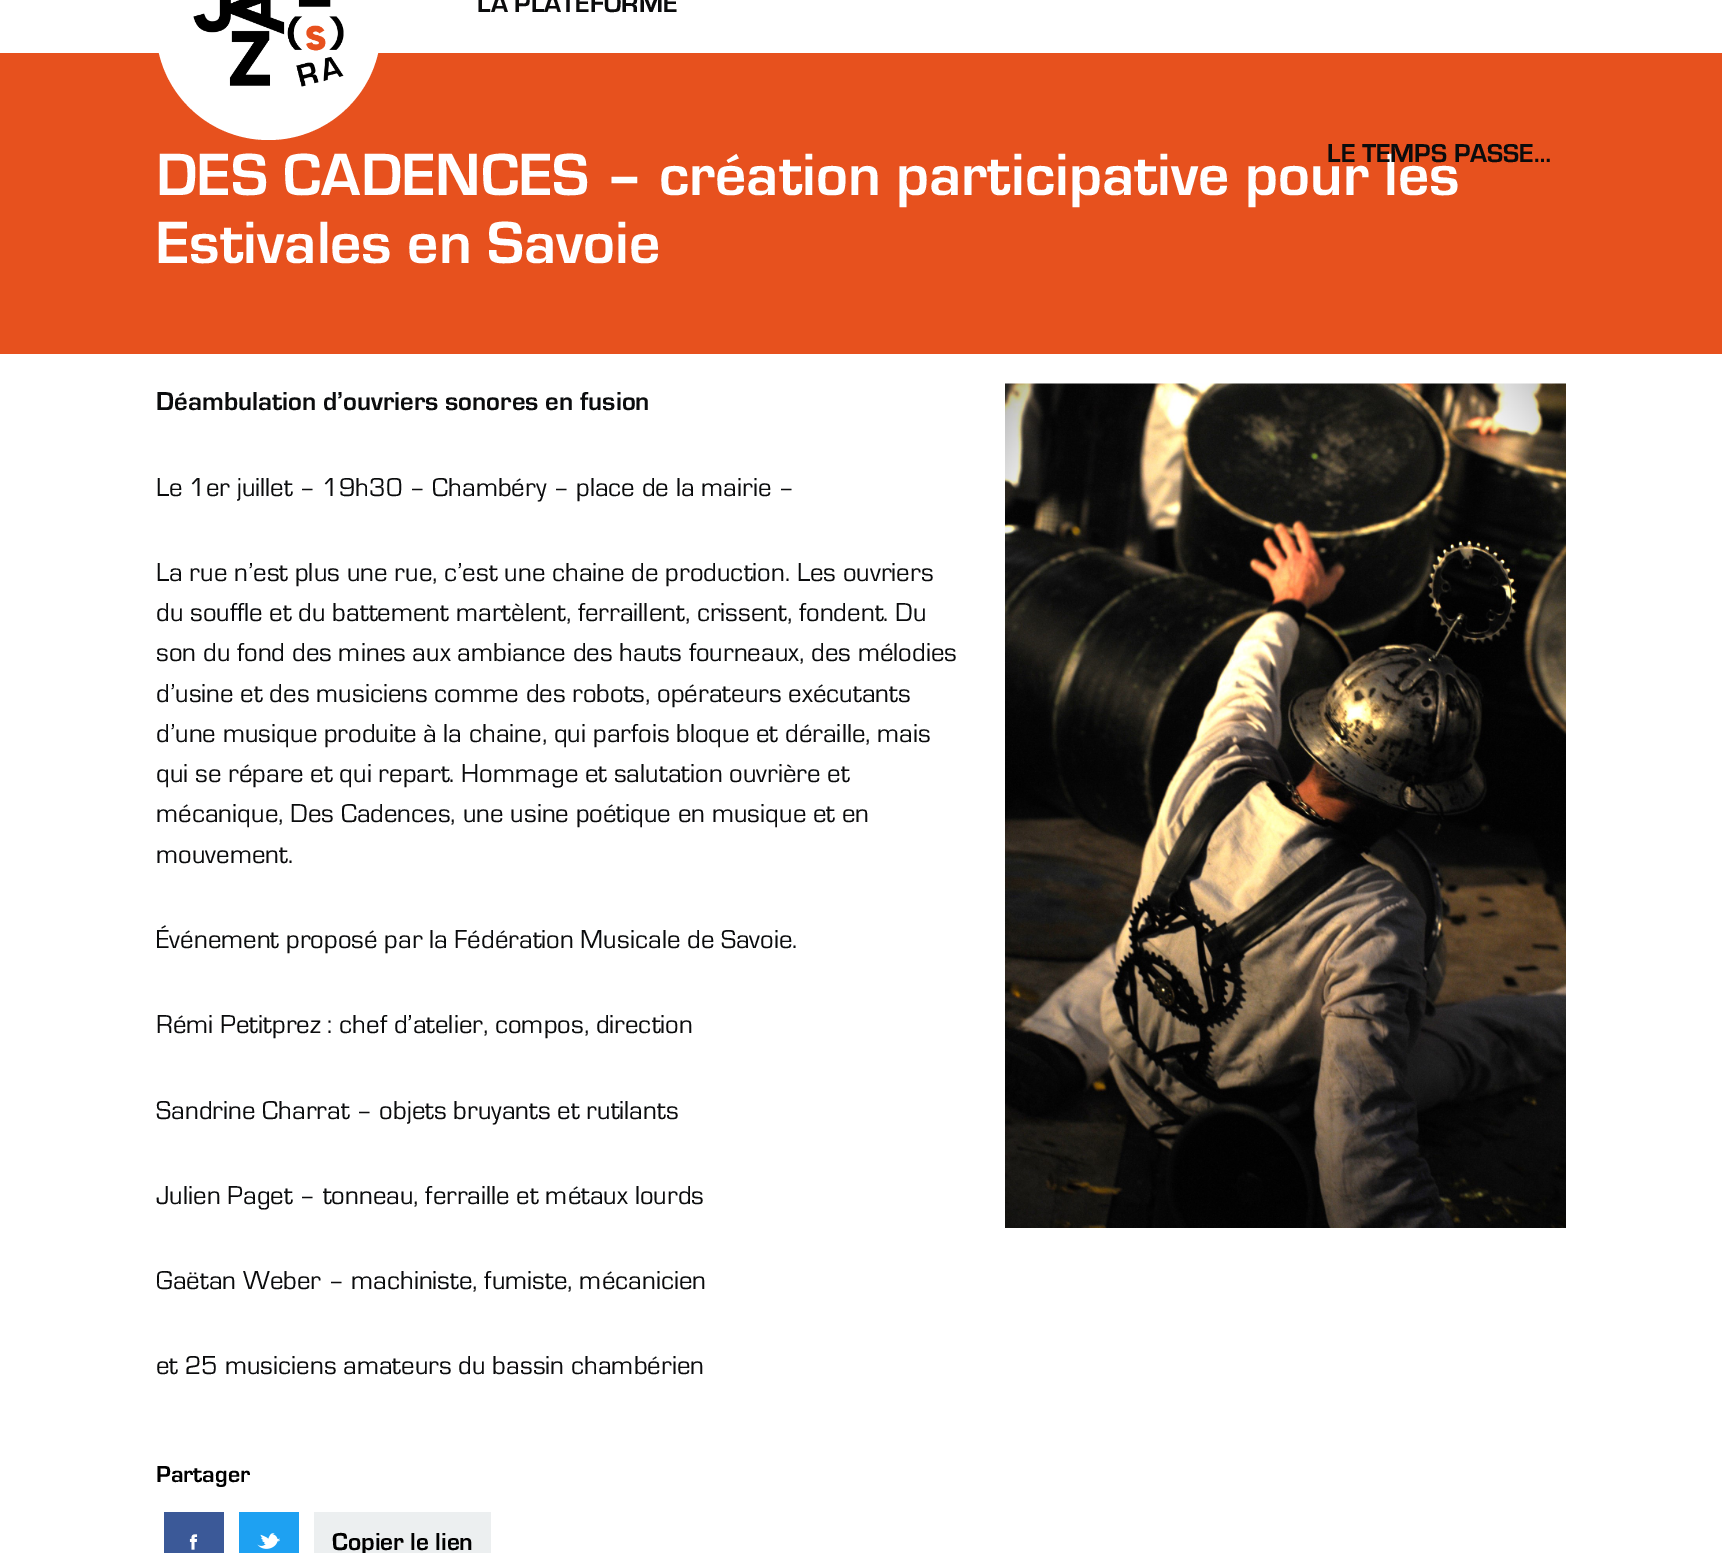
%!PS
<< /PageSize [1722 1553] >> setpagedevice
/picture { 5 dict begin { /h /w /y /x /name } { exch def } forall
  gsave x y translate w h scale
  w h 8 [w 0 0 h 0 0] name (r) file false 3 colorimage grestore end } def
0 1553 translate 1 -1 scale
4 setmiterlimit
1 setgray
0 0 1722 1553 rectfill
0.906 0.318 0.118 setrgbcolor
0 53 1722 301 rectfill
1 setgray
newpath 268.5 27.5 112.5 0 360 arc closepath fill
(img1.rgb) 193 0 151 87 picture
/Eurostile-Bold [26.85 0 0 -26.85 0 0] selectfont
0.043 0.047 0.051 setrgbcolor
477 12 moveto (LA PLATEFORME) show
/Eurostile-Bold [61.75 0 0 -61.75 0 0] selectfont
1 setgray
156 195 moveto (DES CADENCES – création participative pour les) show
/Eurostile-Bold [26.85 0 0 -26.85 0 0] selectfont
0.043 0.047 0.051 setrgbcolor
1327 162 moveto (LE TEMPS PASSE…) show
/Eurostile-Bold [61.75 0 0 -61.75 0 0] selectfont
1 setgray
156 263 moveto (Estivales en Savoie) show
/Eurostile-Bold [26.85 0 0 -26.85 0 0] selectfont
0.043 0.047 0.051 setrgbcolor
156 410 moveto (Déambulation d’ouvriers sonores en fusion) show
/Eurostile-Regular [26.85 0 0 -26.85 0 0] selectfont
156 496 moveto (Le 1er juillet – 19h30 – Chambéry – place de la mairie –) show
156 581 moveto (La rue n’est plus une rue, c’est une chaine de production. Les ouvriers) show
156 621 moveto (du souffle et du battement martèlent, ferraillent, crissent, fondent. Du) show
156 661 moveto (son du fond des mines aux ambiance des hauts fourneaux, des mélodies) show
156 702 moveto (d’usine et des musiciens comme des robots, opérateurs exécutants) show
156 742 moveto (d’une musique produite à la chaine, qui parfois bloque et déraille, mais) show
156 782 moveto (qui se répare et qui repart. Hommage et salutation ouvrière et) show
156 822 moveto (mécanique, Des Cadences, une usine poétique en musique et en) show
156 863 moveto (mouvement.) show
156 948 moveto (Événement proposé par la Fédération Musicale de Savoie.) show
156 1033 moveto (Rémi Petitprez : chef d’atelier, compos, direction) show
156 1119 moveto (Sandrine Charrat – objets bruyants et rutilants) show
156 1204 moveto (Julien Paget – tonneau, ferraille et métaux lourds) show
156 1289 moveto (Gaëtan Weber – machiniste, fumiste, mécanicien) show
156 1374 moveto (et 25 musiciens amateurs du bassin chambérien) show
/Eurostile-Bold [24 0 0 -24 0 0] selectfont
0 setgray
156 1482 moveto (Partager) show
0.231 0.349 0.596 setrgbcolor
164 1512 60 41 rectfill
(img2.rgb) 189 1534 9 16 picture
0.118 0.631 0.949 setrgbcolor
239 1512 60 41 rectfill
(img3.rgb) 257 1533 23 16 picture
0.925 0.937 0.941 setrgbcolor
314 1512 177 41 rectfill
/Eurostile-Bold [25.5 0 0 -25.5 0 0] selectfont
0 setgray
332 1550 moveto (Copier le lien) show
(img4.rgb) 1005 383 561 845 picture
showpage
